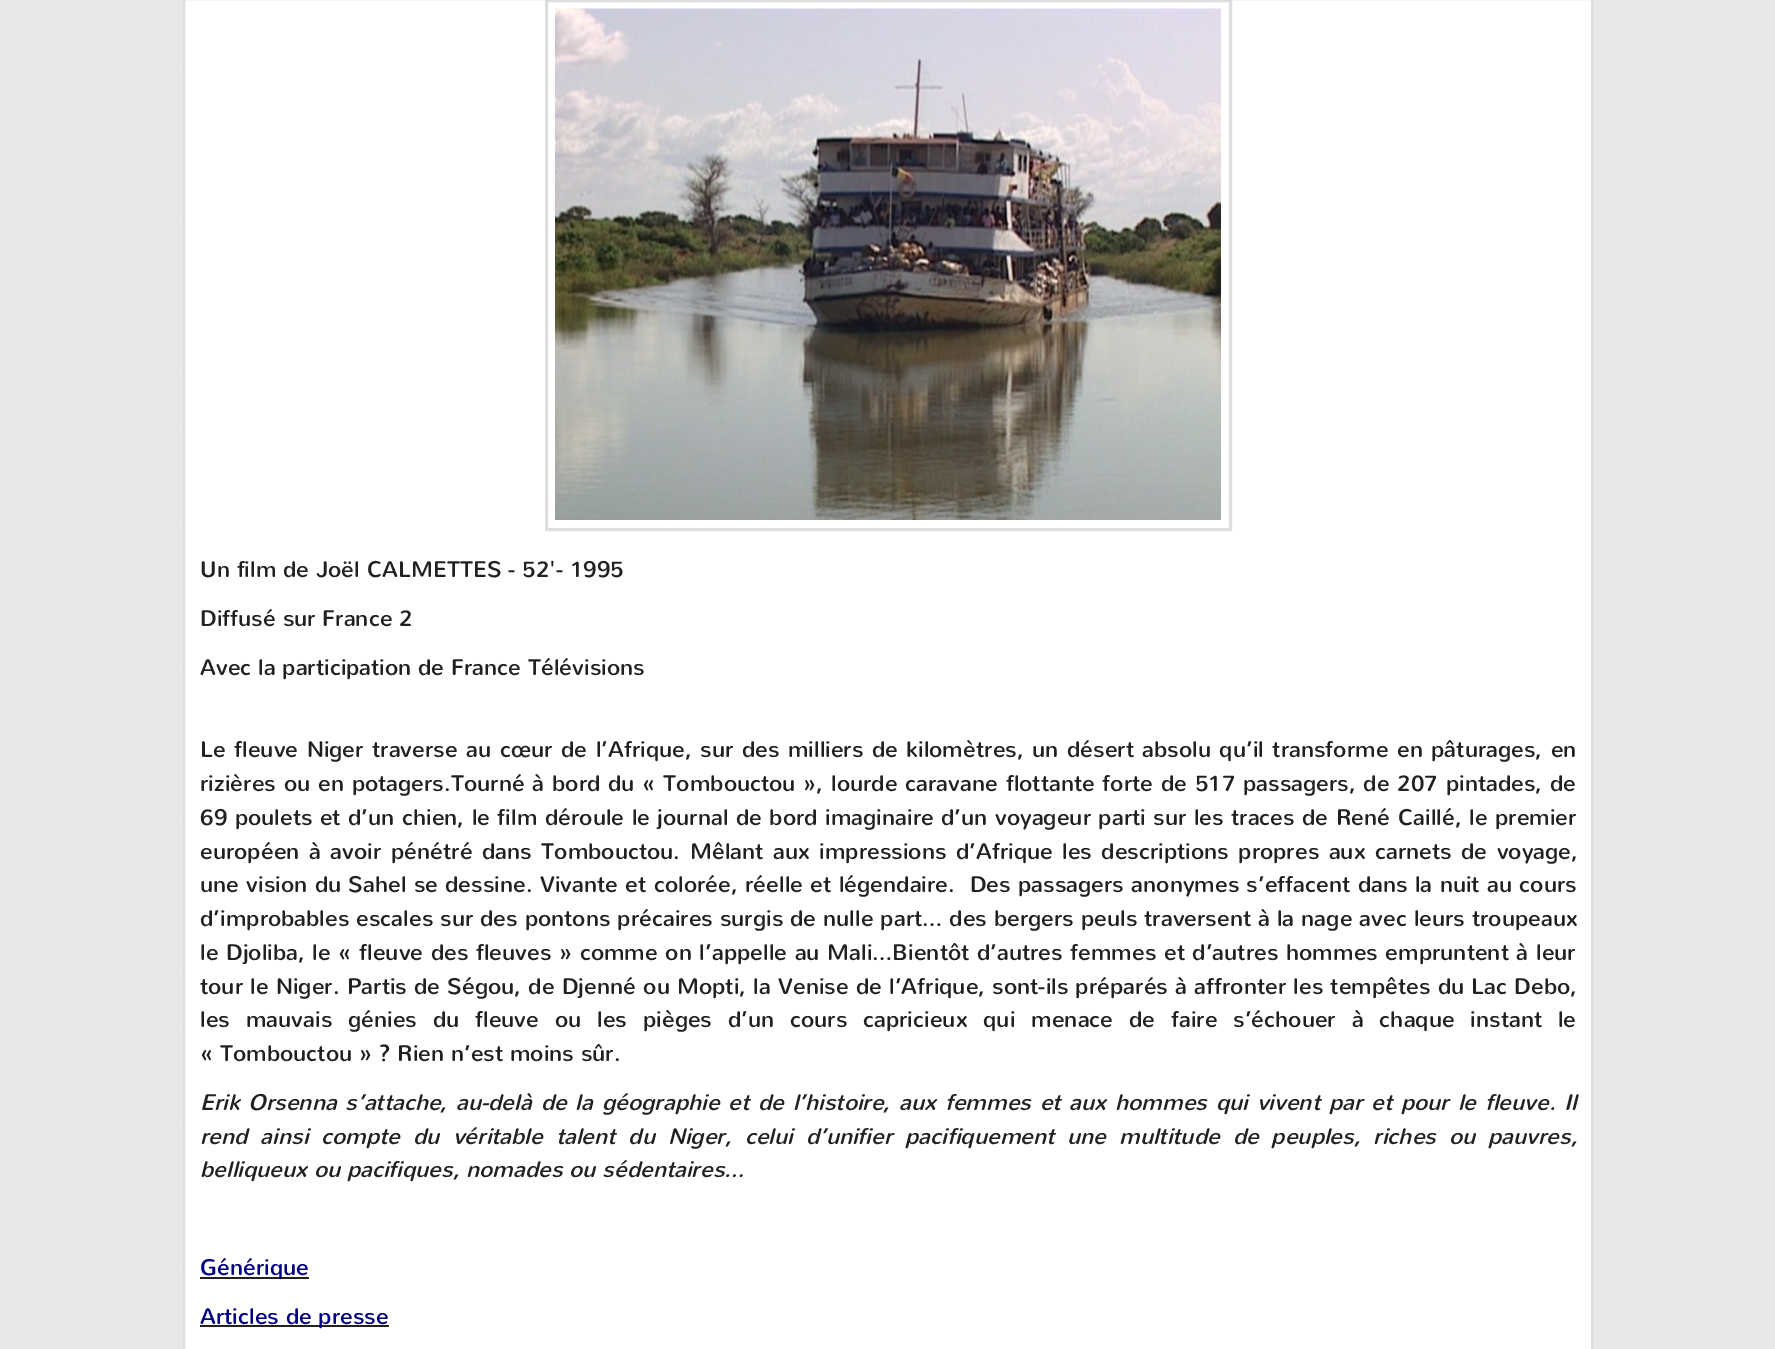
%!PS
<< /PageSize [1775 1349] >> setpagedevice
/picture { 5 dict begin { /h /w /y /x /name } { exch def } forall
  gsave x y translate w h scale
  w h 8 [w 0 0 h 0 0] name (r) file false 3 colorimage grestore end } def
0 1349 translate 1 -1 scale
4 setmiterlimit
0.961 setgray
0 0 1775 1349 rectfill
(img1.rgb) 0 0 1775 1349 picture
1 setgray
newpath 184 -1 moveto 1592 -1 lineto 1592 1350 lineto 184 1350 lineto closepath gsave fill grestore
0.867 setgray
2 setlinewidth
stroke
0.871 setgray
3 setlinewidth
546.5 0.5 684 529 rectstroke
(img2.rgb) 555 8 666 512 picture
/Nunito-Regular [22.5 0 0 -22.5 0 0] selectfont
0.129 setgray
200 577 moveto (Un film de Joël CALMETTES - 52'- 1995) show
200 626 moveto (Diffusé sur France 2) show
200 675 moveto (Avec la participation de France Télévisions) show
200 757 moveto 1.8 0 32 (Le fleuve Niger traverse au cœur de l’Afrique, sur des milliers de kilomètres, un désert absolu qu’il transforme en pâturages, en) widthshow
200 791 moveto 1.1 0 32 (rizières ou en potagers.Tourné à bord du « Tombouctou », lourde caravane flottante forte de 517 passagers, de 207 pintades, de) widthshow
200 825 moveto 0.75 0 32 (69 poulets et d’un chien, le film déroule le journal de bord imaginaire d’un voyageur parti sur les traces de René Caillé, le premier) widthshow
200 859 moveto 2.75 0 32 (européen à avoir pénétré dans Tombouctou. Mêlant aux impressions d’Afrique les descriptions propres aux carnets de voyage,) widthshow
200 892 moveto 0.65 0 32 (une vision du Sahel se dessine. Vivante et colorée, réelle et légendaire.  Des passagers anonymes s’effacent dans la nuit au cours) widthshow
200 926 moveto 0.25 0 32 (d’improbables escales sur des pontons précaires surgis de nulle part… des bergers peuls traversent à la nage avec leurs troupeaux) widthshow
200 960 moveto 0.9 0 32 (le Djoliba, le « fleuve des fleuves » comme on l’appelle au Mali…Bientôt d’autres femmes et d’autres hommes empruntent à leur) widthshow
200 994 moveto 0.5 0 32 (tour le Niger. Partis de Ségou, de Djenné ou Mopti, la Venise de l’Afrique, sont-ils préparés à affronter les tempêtes du Lac Debo,) widthshow
200 1027 moveto 9.1 0 32 (les mauvais génies du fleuve ou les pièges d’un cours capricieux qui menace de faire s’échouer à chaque instant le) widthshow
200 1061 moveto (« Tombouctou » ? Rien n’est moins sûr.) show
/Nunito-Italic [22.5 0 0 -22.5 0 0] selectfont
200 1110 moveto 2.1 0 32 (Erik Orsenna s’attache, au-delà de la géographie et de l’histoire, aux femmes et aux hommes qui vivent par et pour le fleuve. Il) widthshow
200 1144 moveto 6.25 0 32 (rend ainsi compte du véritable talent du Niger, celui d’unifier pacifiquement une multitude de peuples, riches ou pauvres,) widthshow
200 1177 moveto (belliqueux ou pacifiques, nomades ou sédentaires…) show
200 1277 109 2 rectfill
/Nunito-Regular [22.5 0 0 -22.5 0 0] selectfont
0 0 0.502 setrgbcolor
200 1275 moveto (Générique) show
0.129 setgray
200 1325 189 2 rectfill
0 0 0.502 setrgbcolor
200 1324 moveto (Articles de presse) show
showpage
